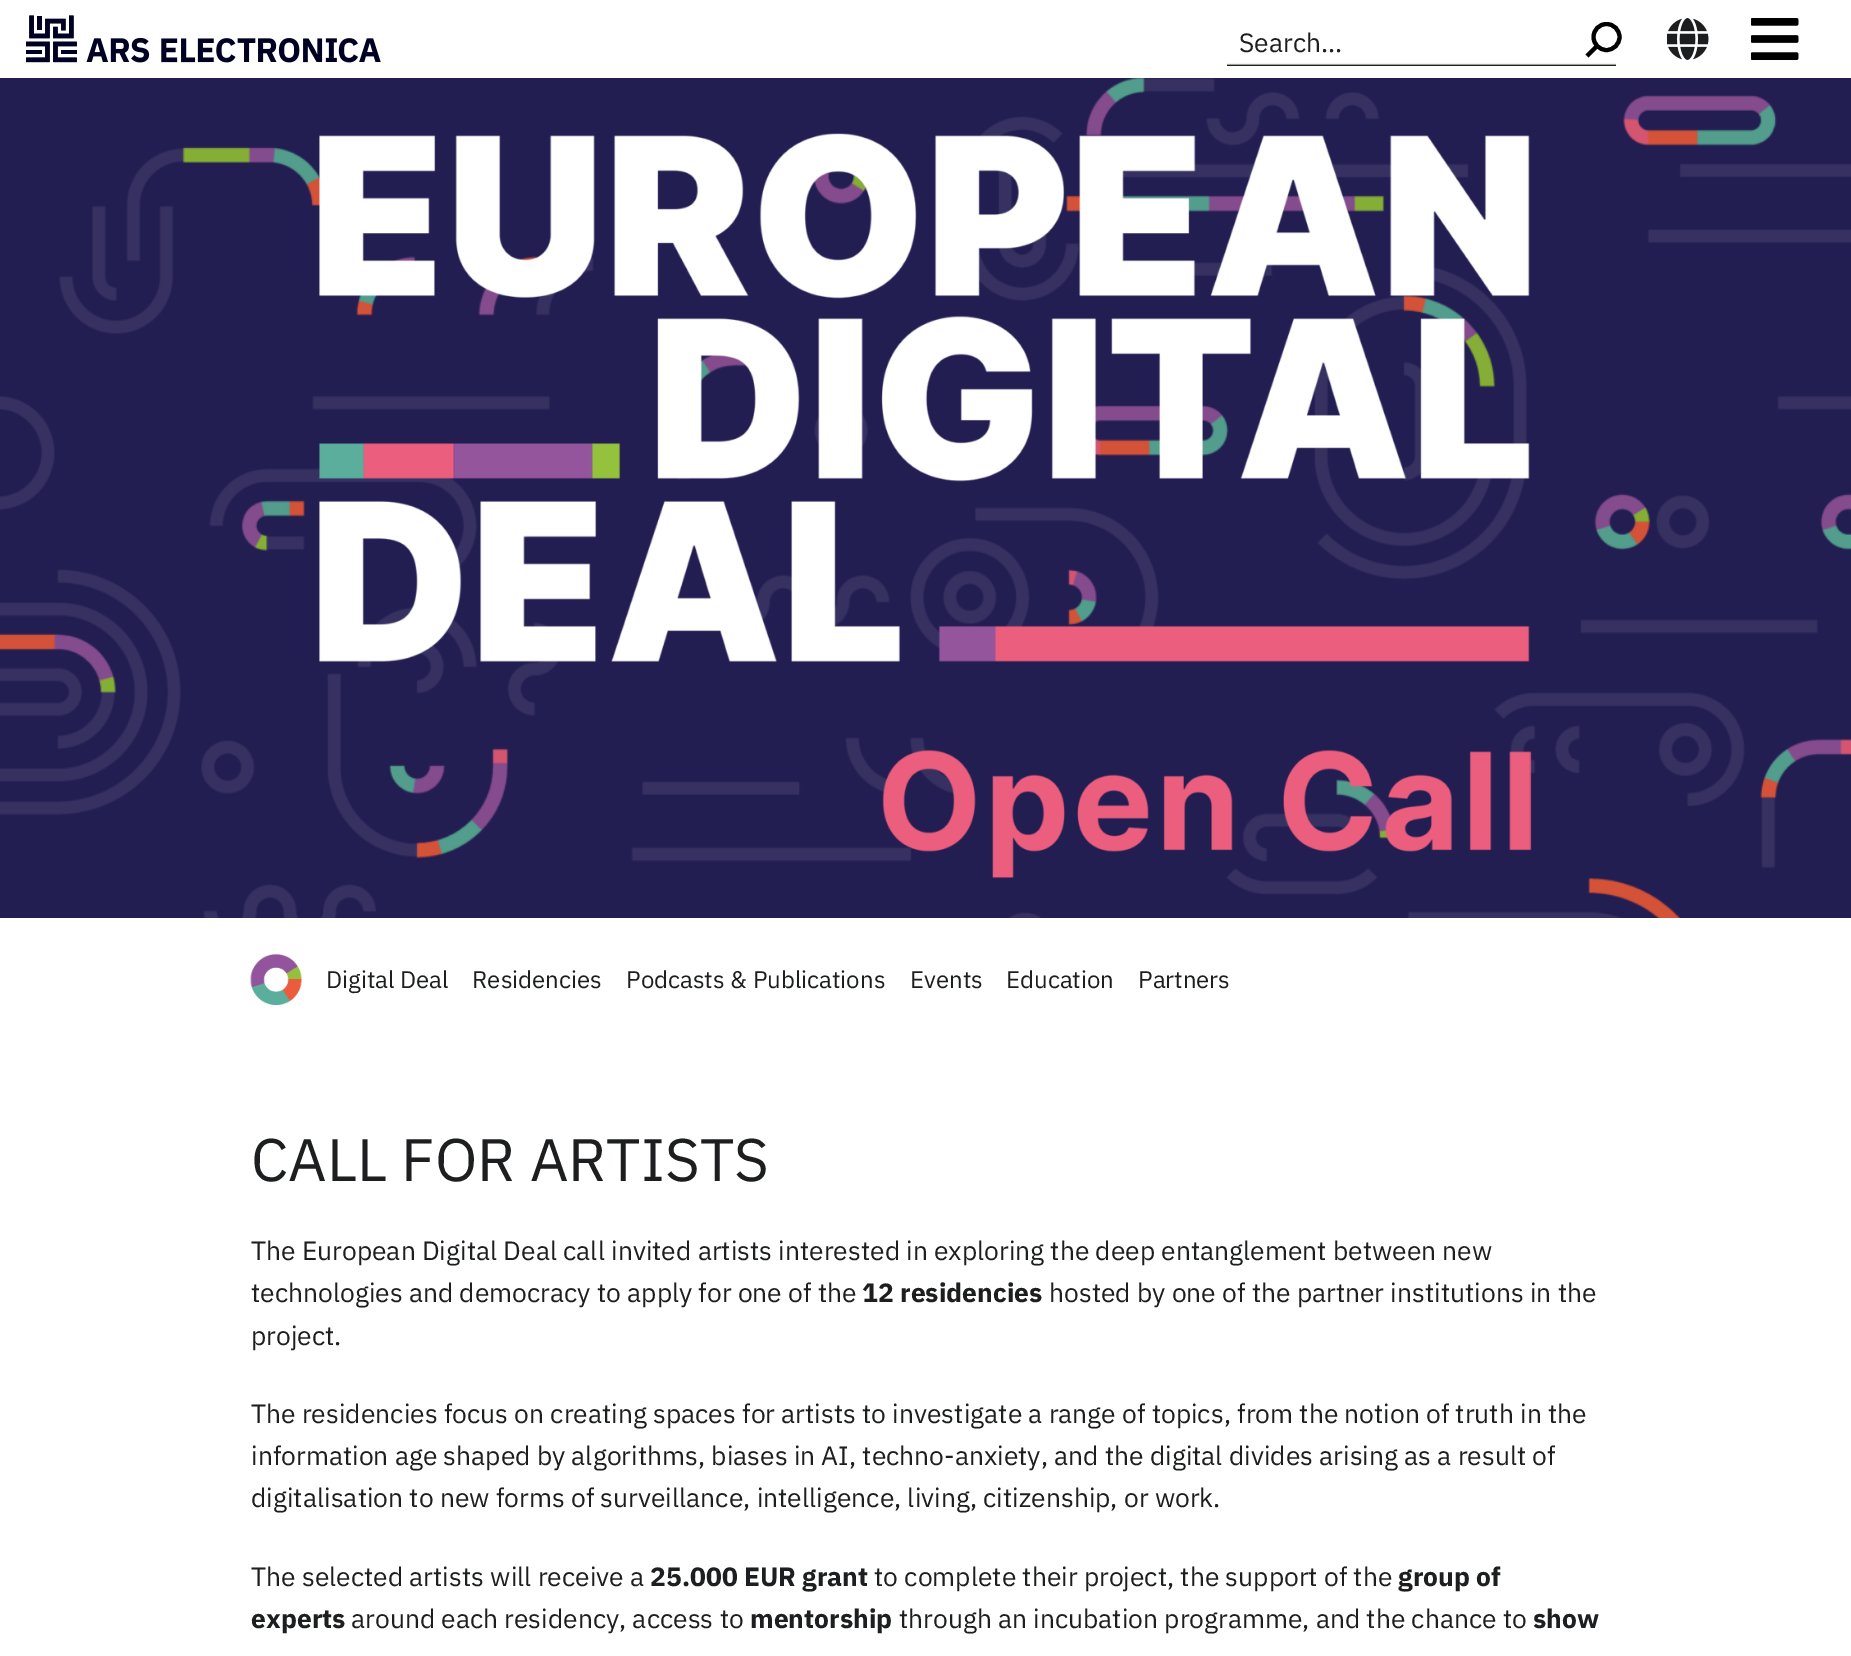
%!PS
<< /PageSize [1851 1656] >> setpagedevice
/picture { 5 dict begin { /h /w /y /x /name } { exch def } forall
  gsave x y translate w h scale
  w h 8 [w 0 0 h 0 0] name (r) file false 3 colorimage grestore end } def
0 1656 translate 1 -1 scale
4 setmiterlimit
1 setgray
0 0 1851 1656 rectfill
(img1.rgb) 26 15 355 48 picture
gsave newpath 1227 63 moveto 1616 63 lineto 1616 66 lineto 1227 66 lineto closepath clip newpath
<< /ShadingType 2 /ColorSpace /DeviceRGB /Coords [1421 13 1421 66] /Extend [true true] /Function << /FunctionType 3 /Domain [0 1] /Functions [<< /FunctionType 2 /Domain [0 1] /C0 [1 1 1] /C1 [1 1 1] /N 1 >> << /FunctionType 2 /Domain [0 1] /C0 [1 1 1] /C1 [0.114 0.118 0.122] /N 1 >>] /Bounds [0.95] /Encode [0 1 0 1] >> >> shfill grestore
/IBMPlexSans-Regular [26.4 0 0 -26.4 0 0] selectfont
0.114 0.118 0.122 setrgbcolor
1239 52 moveto (Search...) show
0 setgray
4.1 setlinewidth
newpath 1606.5 37 13 0 360 arc closepath stroke
newpath 1597 46 moveto 1587 56 lineto stroke
(img2.rgb) 1667 18 42 42 picture
(img3.rgb) 1751 18 48 42 picture
(img4.rgb) 0 78 1851 840 picture
(img5.rgb) 319 133 1213 746 picture
(img6.rgb) 250 954 52 51 picture
/IBMPlexSans-Regular [24 0 0 -24 0 0] selectfont
0.114 0.118 0.122 setrgbcolor
326 988 moveto (Digital Deal) show
472 988 moveto (Residencies) show
626 988 moveto (Podcasts & Publications) show
910 988 moveto (Events) show
1006 988 moveto (Education) show
1138 988 moveto (Partners) show
/IBMPlexSans-Regular [60 0 0 -60 0 0] selectfont
251 1181 moveto (CALL FOR ARTISTS) show
/IBMPlexSans-Regular [26.4 0 0 -26.4 0 0] selectfont
251 1260 moveto (The European Digital Deal call invited artists interested in exploring the deep entanglement between new) show
251 1302 moveto (technologies and democracy to apply for one of the) show
/IBMPlexSans-Bold [26.4 0 0 -26.4 0 0] selectfont
862 1302 moveto (12 residencies) show
/IBMPlexSans-Regular [26.4 0 0 -26.4 0 0] selectfont
1049 1302 moveto (hosted by one of the partner institutions in the) show
251 1345 moveto (project.) show
251 1423 moveto (The residencies focus on creating spaces for artists to investigate a range of topics, from the notion of truth in the) show
251 1465 moveto (information age shaped by algorithms, biases in AI, techno-anxiety, and the digital divides arising as a result of) show
251 1507 moveto (digitalisation to new forms of surveillance, intelligence, living, citizenship, or work.) show
251 1586 moveto (The selected artists will receive a) show
/IBMPlexSans-Bold [26.4 0 0 -26.4 0 0] selectfont
650 1586 moveto (25.000 EUR grant) show
/IBMPlexSans-Regular [26.4 0 0 -26.4 0 0] selectfont
874 1586 moveto (to complete their project, the support of the) show
/IBMPlexSans-Bold [26.4 0 0 -26.4 0 0] selectfont
1398 1586 moveto (group of) show
251 1628 moveto (experts) show
/IBMPlexSans-Regular [26.4 0 0 -26.4 0 0] selectfont
351 1628 moveto (around each residency, access to) show
/IBMPlexSans-Bold [26.4 0 0 -26.4 0 0] selectfont
750 1628 moveto (mentorship) show
/IBMPlexSans-Regular [26.4 0 0 -26.4 0 0] selectfont
899 1628 moveto (through an incubation programme, and the chance to) show
/IBMPlexSans-Bold [26.4 0 0 -26.4 0 0] selectfont
1533 1628 moveto (show) show
showpage
